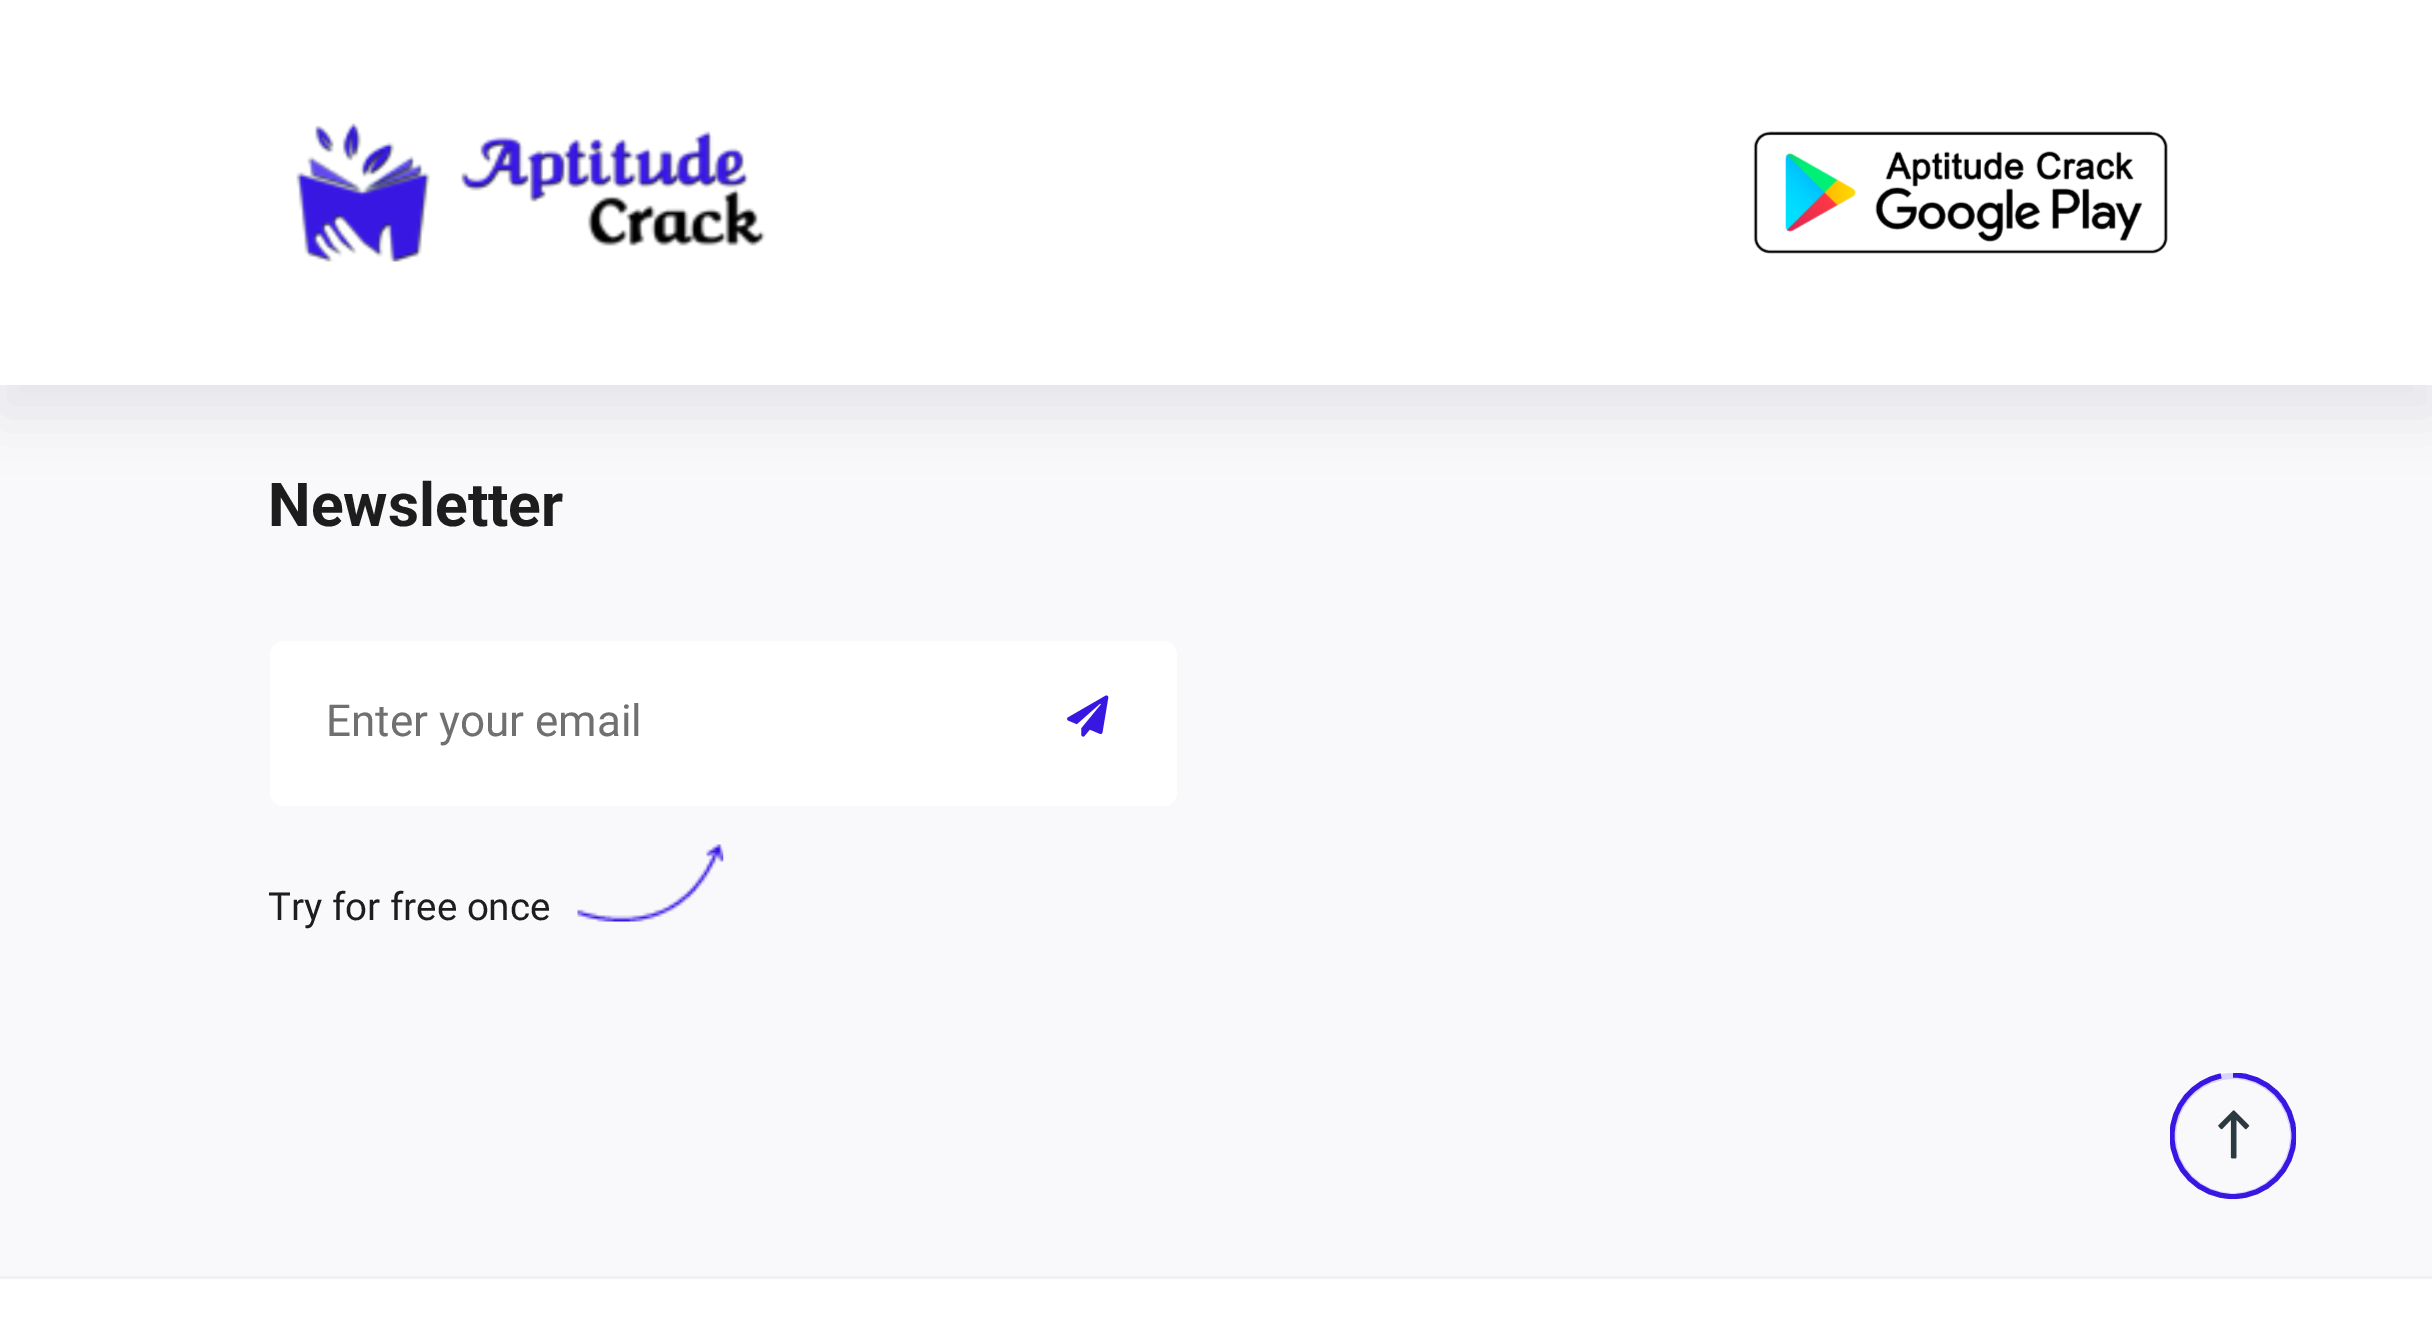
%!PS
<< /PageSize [2432 1335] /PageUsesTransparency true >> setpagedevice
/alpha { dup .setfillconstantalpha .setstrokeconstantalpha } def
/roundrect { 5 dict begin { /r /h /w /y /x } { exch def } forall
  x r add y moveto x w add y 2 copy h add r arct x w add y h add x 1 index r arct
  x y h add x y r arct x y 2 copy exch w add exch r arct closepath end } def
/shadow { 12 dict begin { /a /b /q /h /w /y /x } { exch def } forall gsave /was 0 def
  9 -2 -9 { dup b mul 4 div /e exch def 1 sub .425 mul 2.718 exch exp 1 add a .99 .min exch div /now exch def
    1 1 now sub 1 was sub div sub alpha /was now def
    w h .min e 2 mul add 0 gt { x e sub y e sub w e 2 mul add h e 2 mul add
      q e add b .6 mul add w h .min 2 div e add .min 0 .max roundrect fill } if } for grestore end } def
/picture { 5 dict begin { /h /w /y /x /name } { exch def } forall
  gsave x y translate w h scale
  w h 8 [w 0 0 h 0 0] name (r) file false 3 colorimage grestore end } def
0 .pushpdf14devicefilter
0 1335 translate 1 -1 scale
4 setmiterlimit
1 setgray
0 0 2432 1335 rectfill
0.976 0.976 0.984 setrgbcolor
0 385 2432 891 rectfill
0.031 0 0.165 setrgbcolor
0 28 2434 385 0 27.5 0.08 shadow
1 setgray
0 0 2432 385 rectfill
(img1.rgb) 296 123 470 139 picture
(img2.rgb) 1753 131 415 123 picture
/Roboto-Bold [60.5 0 0 -60.5 0 0] selectfont
0.114 setgray
268 526 moveto (Newsletter) show
1 setgray
270 641 907 165 14 roundrect fill
/Roboto-Regular [44 0 0 -44 0 0] selectfont
0.439 setgray
326 736 moveto (Enter your email) show
(img3.rgb) 1067 695 42 42 picture
/Roboto-Regular [38.5 0 0 -38.5 0 0] selectfont
0.114 setgray
268 920 moveto (Try for free once) show
(img4.rgb) 577 844 147 78 picture
0.945 setgray
0 1276 2432 3 rectfill
0.855 0.827 0.984 setrgbcolor
6 setlinewidth
newpath 2233 1136 60 0 360 arc closepath stroke
gsave
2170 1073 126 126 rectclip
0.22 0.09 0.89 setrgbcolor
5 setlinewidth
newpath 2233 1075 moveto 2266.5 1075 2294 1102 2294 1136 curveto 2294 1169.5 2266.5 1196.5 2233 1196.5 curveto 2199.5 1196.5 2172 1169.5 2172 1136 curveto 2172 1106.5 2193 1081.5 2221 1076 curveto stroke
grestore
(img5.rgb) 2218 1110 32 49 picture
.poppdf14devicefilter showpage
